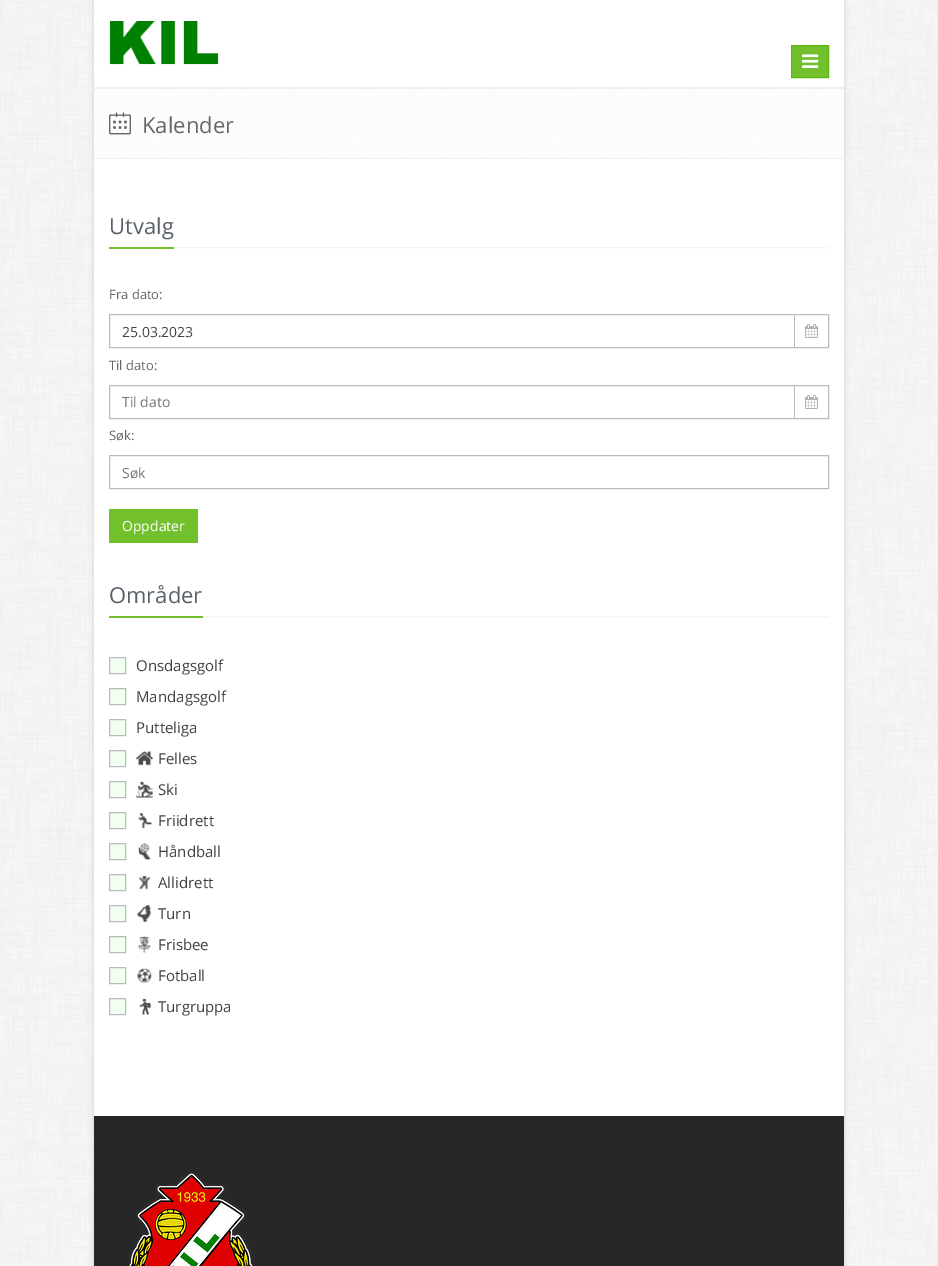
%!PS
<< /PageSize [938 1266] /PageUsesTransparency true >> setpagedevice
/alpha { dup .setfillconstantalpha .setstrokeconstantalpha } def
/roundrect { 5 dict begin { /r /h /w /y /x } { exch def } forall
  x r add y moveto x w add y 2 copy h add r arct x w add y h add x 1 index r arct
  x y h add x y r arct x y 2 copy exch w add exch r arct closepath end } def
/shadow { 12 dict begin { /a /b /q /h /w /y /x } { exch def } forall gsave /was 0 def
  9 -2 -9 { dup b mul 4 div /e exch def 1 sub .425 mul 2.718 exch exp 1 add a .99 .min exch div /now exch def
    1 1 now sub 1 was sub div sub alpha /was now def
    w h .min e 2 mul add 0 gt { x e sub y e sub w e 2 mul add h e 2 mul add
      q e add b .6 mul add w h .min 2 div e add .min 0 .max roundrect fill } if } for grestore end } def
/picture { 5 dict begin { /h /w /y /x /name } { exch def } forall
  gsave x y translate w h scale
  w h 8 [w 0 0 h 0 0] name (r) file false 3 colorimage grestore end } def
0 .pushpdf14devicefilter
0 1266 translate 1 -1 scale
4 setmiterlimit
1 setgray
0 0 938 1266 rectfill
(img1.rgb) 0 0 938 1266 picture
0.8 setgray
94 0 750 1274 0 2.5 1 shadow
1 setgray
94 0 750 1116 rectfill
0.933 setgray
94 87 750 2 rectfill
(img2.rgb) 110 21 109 44 picture
0.447 0.753 0.173 setrgbcolor
newpath 791.5 45.5 moveto 828.5 45.5 lineto 828.5 77.5 lineto 791.5 77.5 lineto closepath gsave fill grestore
0.373 0.714 0.067 setrgbcolor
stroke
(img3.rgb) 802 54 17 14 picture
(img4.rgb) 94 89 750 69 picture
0.933 setgray
94 158 750 1 rectfill
(img5.rgb) 109 112 22 23 picture
/OpenSans-Regular [22 0 0 -22 0 0] selectfont
0.4 setgray
142 133 moveto (Kalender) show
0.894 0.914 0.941 setrgbcolor
[1 1] 0 setdash
newpath 109 247.5 moveto 829 247.5 lineto stroke
0.447 0.753 0.173 setrgbcolor
109 247 65 2 rectfill
0.345 0.373 0.412 setrgbcolor
109 234 moveto (Utvalg) show
/OpenSans-Regular [13 0 0 -13 0 0] selectfont
0.4 setgray
109 299 moveto (Fra dato:) show
0.733 setgray
[] 0 setdash
109.5 314.5 719 33 rectstroke
/OpenSans-Regular [14 0 0 -14 0 0] selectfont
0.251 setgray
122 337 moveto (25.03.2023) show
0.733 setgray
794 315 1 32 rectfill
(img6.rgb) 805 324 13 14 picture
/OpenSans-Regular [13 0 0 -13 0 0] selectfont
0.4 setgray
109 370 moveto (Til dato:) show
0.733 setgray
109.5 385.5 719 33 rectstroke
/OpenSans-Regular [14 0 0 -14 0 0] selectfont
0.459 setgray
122 407 moveto (Til dato) show
0.733 setgray
794 386 1 32 rectfill
(img6.rgb) 805 395 13 14 picture
/OpenSans-Regular [13 0 0 -13 0 0] selectfont
0.4 setgray
109 440 moveto (Søk:) show
0.733 setgray
109.5 455.5 719 33 rectstroke
/OpenSans-Regular [14 0 0 -14 0 0] selectfont
0.459 setgray
122 478 moveto (Søk) show
0.447 0.753 0.173 setrgbcolor
109 509 89 34 rectfill
1 setgray
122 531 moveto (Oppdater) show
0.894 0.914 0.941 setrgbcolor
[1 1] 0 setdash
newpath 109 616.5 moveto 829 616.5 lineto stroke
0.447 0.753 0.173 setrgbcolor
109 616 94 2 rectfill
/OpenSans-Regular [22 0 0 -22 0 0] selectfont
0.345 0.373 0.412 setrgbcolor
109 603 moveto (Områder) show
0.941 1 0.941 setrgbcolor
newpath 109.5 657.5 moveto 125.5 657.5 lineto 125.5 673.5 lineto 109.5 673.5 lineto closepath gsave fill grestore
0.733 setgray
[] 0 setdash
stroke
/OpenSans-Regular [15 0 0 -15 0 0] selectfont
0.251 setgray
136 671 moveto (Onsdagsgolf) show
0.941 1 0.941 setrgbcolor
newpath 109.5 688.5 moveto 125.5 688.5 lineto 125.5 704.5 lineto 109.5 704.5 lineto closepath gsave fill grestore
0.733 setgray
stroke
0.251 setgray
136 702 moveto (Mandagsgolf) show
0.941 1 0.941 setrgbcolor
newpath 109.5 719.5 moveto 125.5 719.5 lineto 125.5 735.5 lineto 109.5 735.5 lineto closepath gsave fill grestore
0.733 setgray
stroke
0.251 setgray
136 733 moveto (Putteliga) show
0.941 1 0.941 setrgbcolor
newpath 109.5 750.5 moveto 125.5 750.5 lineto 125.5 766.5 lineto 109.5 766.5 lineto closepath gsave fill grestore
0.733 setgray
stroke
(img7.rgb) 136 751 17 15 picture
0.251 setgray
158 764 moveto (Felles) show
0.941 1 0.941 setrgbcolor
newpath 109.5 781.5 moveto 125.5 781.5 lineto 125.5 797.5 lineto 109.5 797.5 lineto closepath gsave fill grestore
0.733 setgray
stroke
(img8.rgb) 136 781 17 17 picture
0.251 setgray
158 795 moveto (Ski) show
0.941 1 0.941 setrgbcolor
newpath 109.5 812.5 moveto 125.5 812.5 lineto 125.5 828.5 lineto 109.5 828.5 lineto closepath gsave fill grestore
0.733 setgray
stroke
(img9.rgb) 138 813 15 16 picture
0.251 setgray
158 826 moveto (Friidrett) show
0.941 1 0.941 setrgbcolor
newpath 109.5 843.5 moveto 125.5 843.5 lineto 125.5 859.5 lineto 109.5 859.5 lineto closepath gsave fill grestore
0.733 setgray
stroke
(img10.rgb) 138 843 13 17 picture
0.251 setgray
158 857 moveto (Håndball) show
0.941 1 0.941 setrgbcolor
newpath 109.5 874.5 moveto 125.5 874.5 lineto 125.5 890.5 lineto 109.5 890.5 lineto closepath gsave fill grestore
0.733 setgray
stroke
(img11.rgb) 138 875 13 15 picture
0.251 setgray
158 888 moveto (Allidrett) show
0.941 1 0.941 setrgbcolor
newpath 109.5 905.5 moveto 125.5 905.5 lineto 125.5 921.5 lineto 109.5 921.5 lineto closepath gsave fill grestore
0.733 setgray
stroke
(img12.rgb) 137 905 15 17 picture
0.251 setgray
158 919 moveto (Turn) show
0.941 1 0.941 setrgbcolor
newpath 109.5 936.5 moveto 125.5 936.5 lineto 125.5 952.5 lineto 109.5 952.5 lineto closepath gsave fill grestore
0.733 setgray
stroke
(img13.rgb) 138 936 13 17 picture
0.251 setgray
158 950 moveto (Frisbee) show
0.941 1 0.941 setrgbcolor
newpath 109.5 967.5 moveto 125.5 967.5 lineto 125.5 983.5 lineto 109.5 983.5 lineto closepath gsave fill grestore
0.733 setgray
stroke
(img14.rgb) 137 968 15 16 picture
0.251 setgray
158 981 moveto (Fotball) show
0.941 1 0.941 setrgbcolor
newpath 109.5 998.5 moveto 125.5 998.5 lineto 125.5 1014.5 lineto 109.5 1014.5 lineto closepath gsave fill grestore
0.733 setgray
stroke
(img15.rgb) 139 998 13 17 picture
0.251 setgray
158 1012 moveto (Turgruppa) show
0.153 setgray
94 1116 750 150 rectfill
(img16.rgb) 129 1173 124 93 picture
.poppdf14devicefilter showpage
